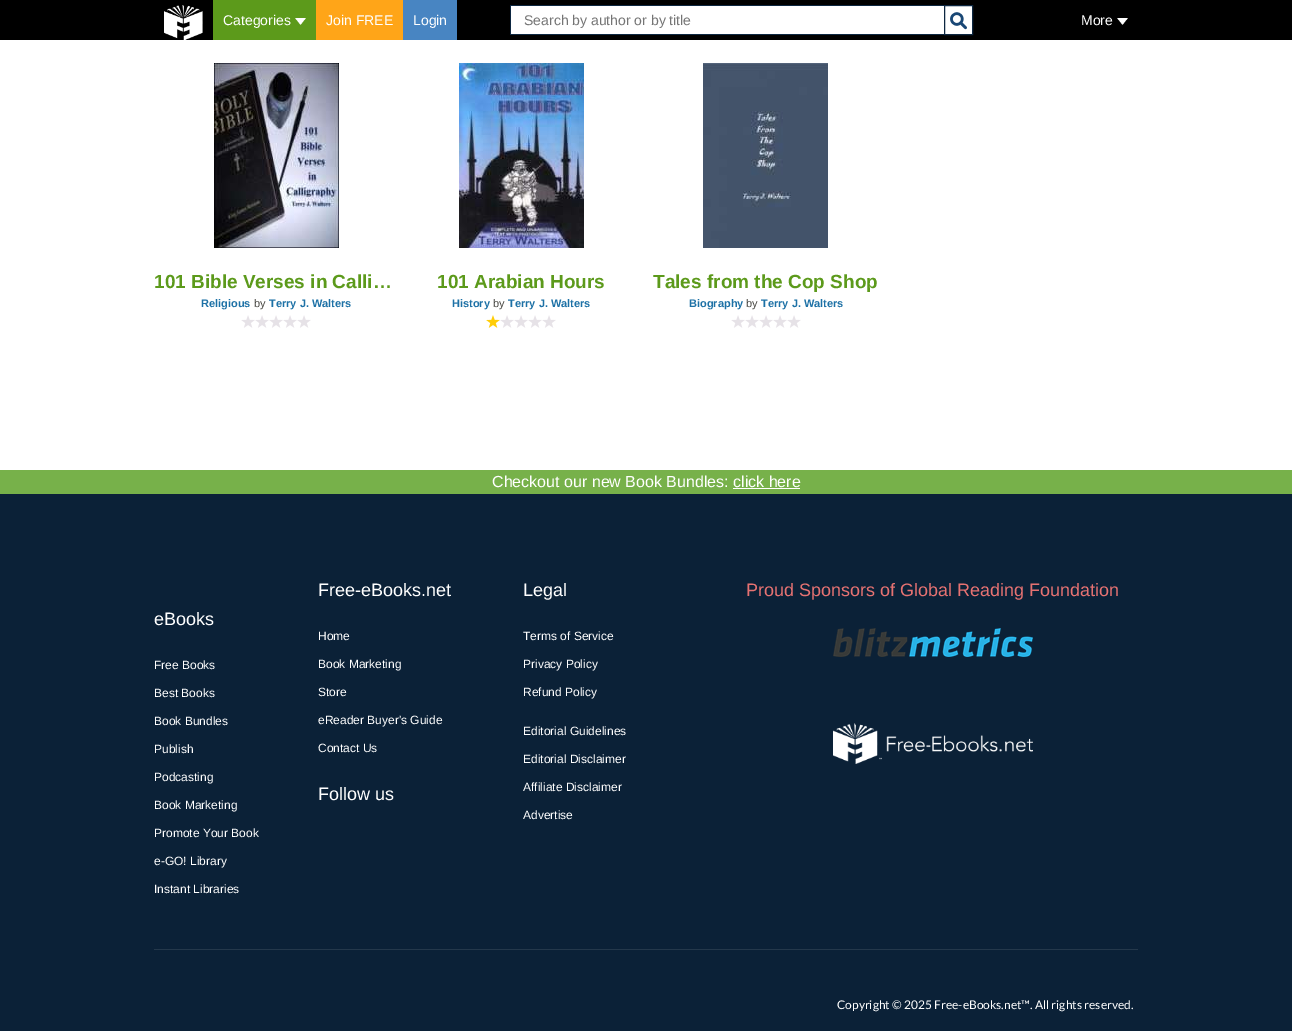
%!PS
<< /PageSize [1292 1031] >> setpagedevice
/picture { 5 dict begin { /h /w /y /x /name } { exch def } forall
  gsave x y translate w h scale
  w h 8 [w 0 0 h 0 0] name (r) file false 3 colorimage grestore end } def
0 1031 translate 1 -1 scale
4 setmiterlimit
1 setgray
0 0 1292 1031 rectfill
0 setgray
0 0 1292 40 rectfill
(img1.rgb) 164 5 39 35 picture
0.361 0.604 0.106 setrgbcolor
213 0 103 40 rectfill
/LiberationSans-Regular [14 0 0 -14 0 0] selectfont
1 setgray
223 25 moveto (Categories) show
(img2.rgb) 295 18 11 7 picture
1 0.647 0.094 setrgbcolor
316 0 87 40 rectfill
1 setgray
326 25 moveto (Join FREE) show
0.282 0.522 0.761 setrgbcolor
403 0 54 40 rectfill
1 setgray
413 25 moveto (Login) show
511 6 433 28 rectfill
0.051 0.153 0.255 setrgbcolor
510 5 434 1 rectfill
510 34 434 1 rectfill
510 5 1 30 rectfill
0.459 setgray
524 25 moveto (Search by author or by title) show
1 setgray
newpath 944.5 5.5 moveto 972.5 5.5 lineto 972.5 34.5 lineto 944.5 34.5 lineto closepath gsave fill grestore
0.051 0.153 0.255 setrgbcolor
stroke
(img3.rgb) 950 12 17 18 picture
1 setgray
1081 25 moveto (More) show
(img4.rgb) 1117 18 11 7 picture
(img5.rgb) 214 63 125 185 picture
/LiberationSans-Bold [19 0 0 -19 0 0] selectfont
0.361 0.604 0.106 setrgbcolor
154 288 moveto (101 Bible Verses in Calli…) show
/LiberationSans-Bold [11 0 0 -11 0 0] selectfont
0.114 0.443 0.651 setrgbcolor
201 307 moveto (Religious) show
/LiberationSans-Regular [11 0 0 -11 0 0] selectfont
0.278 0.275 0.255 setrgbcolor
254 307 moveto (by) show
/LiberationSans-Bold [11 0 0 -11 0 0] selectfont
0.114 0.443 0.651 setrgbcolor
269 307 moveto (Terry J. Walters) show
(img6.rgb) 241 315 14 13 picture
(img6.rgb) 255 315 14 13 picture
(img6.rgb) 269 315 14 13 picture
(img6.rgb) 283 315 14 13 picture
(img6.rgb) 297 315 14 13 picture
(img7.rgb) 459 63 125 185 picture
/LiberationSans-Bold [19 0 0 -19 0 0] selectfont
0.361 0.604 0.106 setrgbcolor
437 288 moveto (101 Arabian Hours) show
/LiberationSans-Bold [11 0 0 -11 0 0] selectfont
0.114 0.443 0.651 setrgbcolor
452 307 moveto (History) show
/LiberationSans-Regular [11 0 0 -11 0 0] selectfont
0.278 0.275 0.255 setrgbcolor
493 307 moveto (by) show
/LiberationSans-Bold [11 0 0 -11 0 0] selectfont
0.114 0.443 0.651 setrgbcolor
508 307 moveto (Terry J. Walters) show
(img8.rgb) 486 315 14 13 picture
(img6.rgb) 500 315 14 13 picture
(img6.rgb) 514 315 14 13 picture
(img6.rgb) 528 315 14 13 picture
(img6.rgb) 542 315 14 13 picture
(img9.rgb) 703 63 125 185 picture
/LiberationSans-Bold [19 0 0 -19 0 0] selectfont
0.361 0.604 0.106 setrgbcolor
653 288 moveto (Tales from the Cop Shop) show
/LiberationSans-Bold [11 0 0 -11 0 0] selectfont
0.114 0.443 0.651 setrgbcolor
689 307 moveto (Biography) show
/LiberationSans-Regular [11 0 0 -11 0 0] selectfont
0.278 0.275 0.255 setrgbcolor
746 307 moveto (by) show
/LiberationSans-Bold [11 0 0 -11 0 0] selectfont
0.114 0.443 0.651 setrgbcolor
761 307 moveto (Terry J. Walters) show
(img6.rgb) 731 315 14 13 picture
(img6.rgb) 745 315 14 13 picture
(img6.rgb) 759 315 14 13 picture
(img6.rgb) 773 315 14 13 picture
(img6.rgb) 787 315 14 13 picture
0.467 0.694 0.29 setrgbcolor
0 470 1292 24 rectfill
/LiberationSans-Regular [16 0 0 -16 0 0] selectfont
1 setgray
492 487 moveto (Checkout our new Book Bundles: click here) show
733 488 67 1 rectfill
0.043 0.129 0.216 setrgbcolor
0 494 1292 537 rectfill
/LiberationSans-Regular [18 0 0 -18 0 0] selectfont
1 setgray
318 596 moveto (Free-eBooks.net) show
/LiberationSans-Regular [12 0 0 -12 0 0] selectfont
318 640 moveto (Home) show
318 668 moveto (Book Marketing) show
318 696 moveto (Store) show
318 724 moveto (eReader Buyer's Guide) show
318 752 moveto (Contact Us) show
/LiberationSans-Regular [18 0 0 -18 0 0] selectfont
318 800 moveto (Follow us) show
523 596 moveto (Legal) show
/LiberationSans-Regular [12 0 0 -12 0 0] selectfont
523 640 moveto (Terms of Service) show
523 668 moveto (Privacy Policy) show
523 696 moveto (Refund Policy) show
523 735 moveto (Editorial Guidelines) show
523 763 moveto (Editorial Disclaimer) show
523 791 moveto (Affiliate Disclaimer) show
523 819 moveto (Advertise) show
/LiberationSans-Regular [18 0 0 -18 0 0] selectfont
0.902 0.447 0.447 setrgbcolor
746 596 moveto (Proud Sponsors of Global Reading Foundation) show
(img10.rgb) 833 628 200 29 picture
(img11.rgb) 833 723 200 41 picture
1 setgray
154 625 moveto (eBooks) show
/LiberationSans-Regular [12 0 0 -12 0 0] selectfont
154 669 moveto (Free Books) show
154 697 moveto (Best Books) show
154 725 moveto (Book Bundles) show
154 753 moveto (Publish) show
154 781 moveto (Podcasting) show
154 809 moveto (Book Marketing) show
154 837 moveto (Promote Your Book) show
154 865 moveto (e-GO! Library) show
154 893 moveto (Instant Libraries) show
0.141 0.22 0.294 setrgbcolor
154 949 984 1 rectfill
/Lato-Regular [12 0 0 -12 0 0] selectfont
1 setgray
837 1009 moveto (Copyright © 2025 Free-eBooks.net™. All rights reserved.) show
showpage
